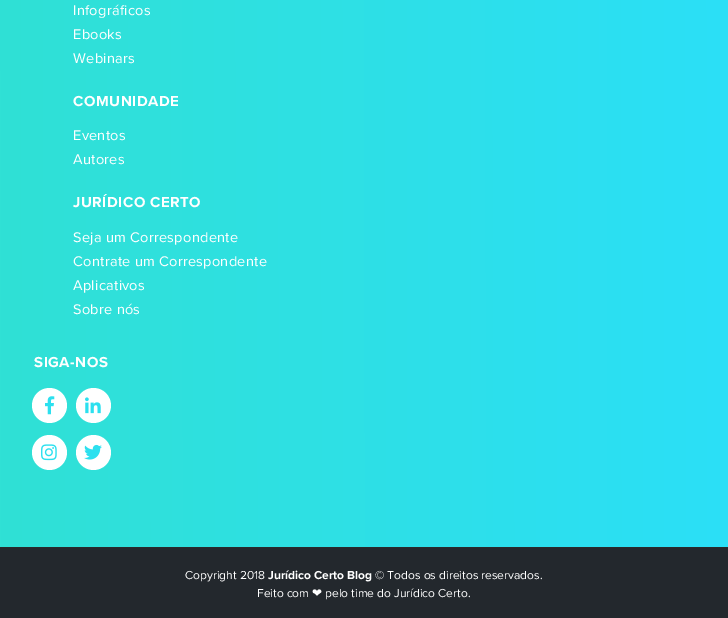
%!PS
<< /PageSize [728 618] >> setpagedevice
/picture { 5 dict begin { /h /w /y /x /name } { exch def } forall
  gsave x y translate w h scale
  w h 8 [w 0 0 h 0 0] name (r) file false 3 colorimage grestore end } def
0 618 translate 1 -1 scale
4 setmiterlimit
1 setgray
0 0 728 618 rectfill
gsave newpath 0 0 moveto 728 0 lineto 728 547 lineto 0 547 lineto closepath clip newpath
<< /ShadingType 2 /ColorSpace /DeviceRGB /Coords [0 73 728 72] /Extend [true true] /Function << /FunctionType 2 /Domain [0 1] /C0 [0.188 0.882 0.835] /C1 [0.169 0.875 0.969] /N 1 >> >> shfill grestore
/ProximaNova-Regular [14.5 0 0 -14.5 0 0] selectfont
73 15 moveto 0.3 0 (Infográficos) ashow
73 39 moveto 0.3 0 (Ebooks) ashow
73 63 moveto 0.3 0 (Webinars) ashow
/ProximaNova-Bold [15 0 0 -15 0 0] selectfont
73 106 moveto 0.5 0 (COMUNIDADE) ashow
/ProximaNova-Regular [14.5 0 0 -14.5 0 0] selectfont
73 140 moveto 0.3 0 (Eventos) ashow
73 164 moveto 0.3 0 (Autores) ashow
/ProximaNova-Bold [15 0 0 -15 0 0] selectfont
73 207 moveto 0.5 0 (JURÍDICO CERTO) ashow
/ProximaNova-Regular [14.5 0 0 -14.5 0 0] selectfont
73 242 moveto 0.3 0 (Seja um Correspondente) ashow
73 266 moveto 0.3 0 (Contrate um Correspondente) ashow
73 290 moveto 0.3 0 (Aplicativos) ashow
73 314 moveto 0.3 0 (Sobre nós) ashow
/ProximaNova-Bold [15 0 0 -15 0 0] selectfont
34 367 moveto 0.5 0 (SIGA-NOS) ashow
newpath 49.5 405.5 17.5 0 360 arc closepath fill
(img1.rgb) 45 396 10 19 picture
newpath 93.5 405.5 17.5 0 360 arc closepath fill
(img2.rgb) 85 397 16 17 picture
newpath 49.5 452.5 17.5 0 360 arc closepath fill
(img3.rgb) 41 444 16 17 picture
newpath 93.5 452.5 17.5 0 360 arc closepath fill
(img4.rgb) 84 444 18 16 picture
0.137 0.157 0.176 setrgbcolor
0 548 728 70 rectfill
0.157 0.165 0.169 setrgbcolor
0 547 728 1 rectfill
/ProximaNova-Regular [12 0 0 -12 0 0] selectfont
1 setgray
185 579 moveto (Copyright 2018) show
/ProximaNova-Bold [12 0 0 -12 0 0] selectfont
268 579 moveto (Jurídico Certo Blog) show
/ProximaNova-Regular [12 0 0 -12 0 0] selectfont
375 579 moveto (© Todos os direitos reservados.) show
257 597 moveto (Feito com) show
/DejaVuSans-Regular [12 0 0 -12 0 0] selectfont
312 597 moveto (❤) show
/ProximaNova-Regular [12 0 0 -12 0 0] selectfont
325 597 moveto (pelo time do Jurídico Certo.) show
showpage
